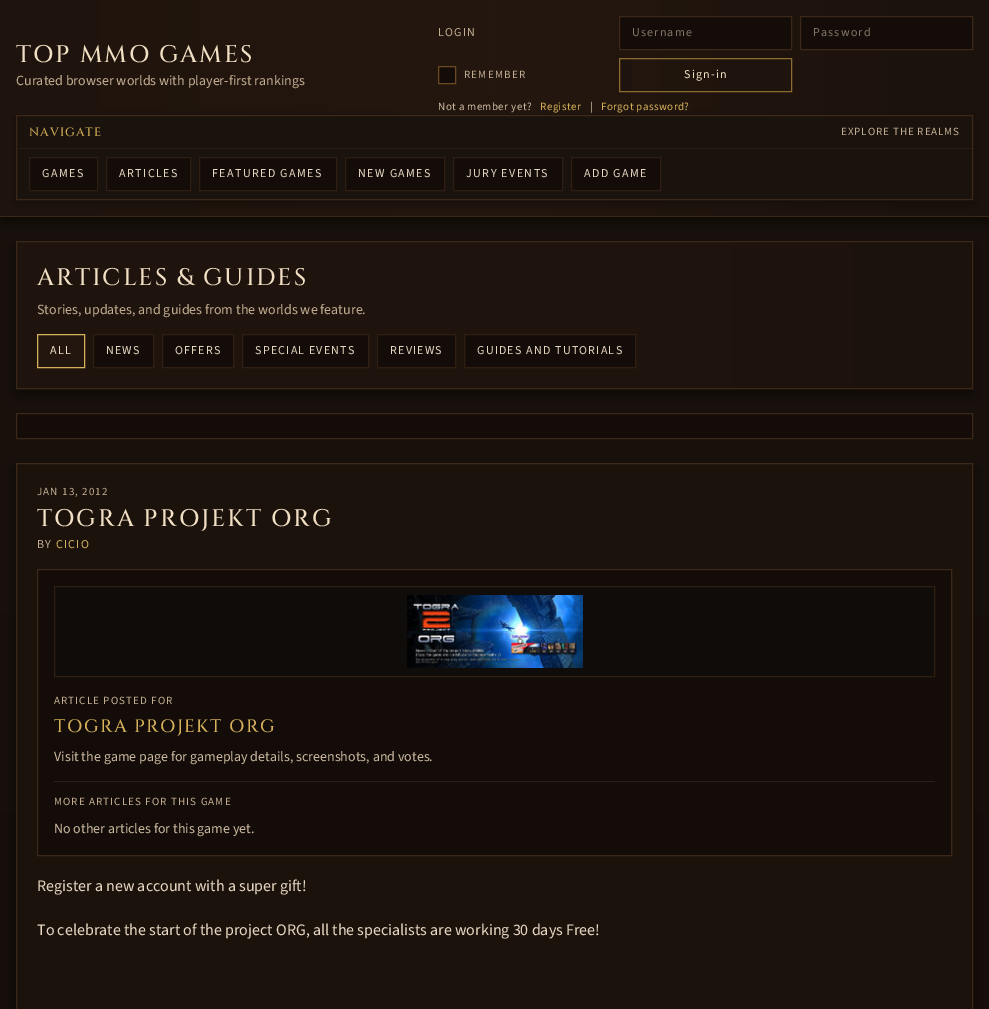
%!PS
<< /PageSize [989 1009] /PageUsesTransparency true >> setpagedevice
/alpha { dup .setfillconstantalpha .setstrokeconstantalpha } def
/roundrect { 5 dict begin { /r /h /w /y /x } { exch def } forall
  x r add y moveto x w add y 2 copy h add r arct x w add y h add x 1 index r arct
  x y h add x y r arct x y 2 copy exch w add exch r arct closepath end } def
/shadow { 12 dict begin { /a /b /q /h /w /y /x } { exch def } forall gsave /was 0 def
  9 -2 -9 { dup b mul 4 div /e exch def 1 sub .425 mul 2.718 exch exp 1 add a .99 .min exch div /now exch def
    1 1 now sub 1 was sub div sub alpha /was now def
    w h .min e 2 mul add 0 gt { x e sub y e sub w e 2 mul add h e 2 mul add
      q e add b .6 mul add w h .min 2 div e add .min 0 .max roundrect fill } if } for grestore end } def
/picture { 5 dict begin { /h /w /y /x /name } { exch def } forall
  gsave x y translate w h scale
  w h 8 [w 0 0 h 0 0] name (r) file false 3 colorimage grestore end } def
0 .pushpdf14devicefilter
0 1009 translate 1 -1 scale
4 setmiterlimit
1 setgray
0 0 989 1009 rectfill
gsave newpath 0 217 moveto 989 217 lineto 989 1009 lineto 0 1009 lineto closepath clip newpath
<< /ShadingType 2 /ColorSpace /DeviceRGB /Coords [494 0 495 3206] /Extend [true true] /Function << /FunctionType 3 /Domain [0 1] /Functions [<< /FunctionType 2 /Domain [0 1] /C0 [0.102 0.071 0.051] /C1 [0.071 0.047 0.031] /N 1 >> << /FunctionType 2 /Domain [0 1] /C0 [0.071 0.047 0.031] /C1 [0.043 0.031 0.024] /N 1 >>] /Bounds [0.5] /Encode [0 1 0 1] >> >> shfill grestore
0 setgray
0 6 989 217 0 8 0.45 shadow
gsave newpath 0 0 moveto 989 0 lineto 989 216 lineto 0 216 lineto closepath clip newpath
<< /ShadingType 2 /ColorSpace /DeviceRGB /Coords [0 108 989 108] /Extend [true true] /Function << /FunctionType 3 /Domain [0 1] /Functions [<< /FunctionType 2 /Domain [0 1] /C0 [0.122 0.078 0.051] /C1 [0.141 0.09 0.059] /N 1 >> << /FunctionType 2 /Domain [0 1] /C0 [0.141 0.09 0.059] /C1 [0.106 0.071 0.047] /N 1 >>] /Bounds [0.5] /Encode [0 1 0 1] >> >> shfill grestore
0.227 0.157 0.094 setrgbcolor
0 216 989 1 rectfill
/Cinzel-Medium [24 0 0 -24 0 0] selectfont
0.945 0.875 0.769 setrgbcolor
16 62 moveto 1.9 0 (TOP MMO GAMES) ashow
/SourceSans3-Regular [14 0 0 -14 0 0] selectfont
0.761 0.678 0.573 setrgbcolor
16 85 moveto (Curated browser worlds with player-first rankings) show
/SourceSans3-Regular [12 0 0 -12 0 0] selectfont
438 36 moveto 1.2 0 (LOGIN) ashow
0.078 0.047 0.031 setrgbcolor
newpath 619.5 16.5 moveto 791.5 16.5 lineto 791.5 49.5 lineto 619.5 49.5 lineto closepath gsave fill grestore
0.231 0.157 0.094 setrgbcolor
stroke
0.514 0.463 0.4 setrgbcolor
632 36 moveto 1.2 0 (Username) ashow
0.078 0.047 0.031 setrgbcolor
newpath 800.5 16.5 moveto 972.5 16.5 lineto 972.5 49.5 lineto 800.5 49.5 lineto closepath gsave fill grestore
0.231 0.157 0.094 setrgbcolor
stroke
0.514 0.463 0.4 setrgbcolor
813 36 moveto 1.2 0 (Password) ashow
0.078 0.047 0.031 setrgbcolor
newpath 438.5 66.5 moveto 455.5 66.5 lineto 455.5 83.5 lineto 438.5 83.5 lineto closepath gsave fill grestore
0.42 0.29 0.122 setrgbcolor
stroke
/SourceSans3-Regular [11 0 0 -11 0 0] selectfont
0.761 0.678 0.573 setrgbcolor
464 78 moveto 1.2 0 (REMEMBER) ashow
0.122 0.078 0.051 setrgbcolor
620 59 12 32 rectfill
0.545 0.42 0.184 setrgbcolor
619.5 58.5 172 33 rectstroke
/SourceSans3-Regular [12 0 0 -12 0 0] selectfont
0.945 0.875 0.769 setrgbcolor
684 78 moveto 1.2 0 (Sign-in) ashow
0 setgray
16 119 957 85 0 6 0.35 shadow
/SourceSans3-Regular [11 0 0 -11 0 0] selectfont
0.796 0.725 0.627 setrgbcolor
438 110 moveto 0.4 0 (Not a member yet?) ashow
0.839 0.694 0.349 setrgbcolor
540 110 moveto 0.4 0 (Register) ashow
0.796 0.725 0.627 setrgbcolor
590 110 moveto 0.4 0 (|) ashow
0.839 0.694 0.349 setrgbcolor
601 110 moveto 0.4 0 (Forgot password?) ashow
0.102 0.071 0.047 setrgbcolor
newpath 16.5 115.5 moveto 972.5 115.5 lineto 972.5 199.5 lineto 16.5 199.5 lineto closepath gsave fill grestore
0.231 0.157 0.094 setrgbcolor
stroke
0.169 0.11 0.067 setrgbcolor
17 148 955 1 rectfill
/Cinzel-Medium [12 0 0 -12 0 0] selectfont
0.839 0.694 0.349 setrgbcolor
29 136 moveto 1 0 (NAVIGATE) ashow
/SourceSans3-Regular [11 0 0 -11 0 0] selectfont
0.761 0.678 0.573 setrgbcolor
841 135 moveto 0.9 0 (EXPLORE THE REALMS) ashow
0.078 0.047 0.031 setrgbcolor
newpath 29.5 157.5 moveto 97.5 157.5 lineto 97.5 190.5 lineto 29.5 190.5 lineto closepath gsave fill grestore
0.184 0.118 0.071 setrgbcolor
stroke
/SourceSans3-Regular [12 0 0 -12 0 0] selectfont
0.902 0.843 0.757 setrgbcolor
42 177 moveto 1.4 0 (GAMES) ashow
0.078 0.047 0.031 setrgbcolor
newpath 106.5 157.5 moveto 190.5 157.5 lineto 190.5 190.5 lineto 106.5 190.5 lineto closepath gsave fill grestore
0.184 0.118 0.071 setrgbcolor
stroke
0.902 0.843 0.757 setrgbcolor
119 177 moveto 1.4 0 (ARTICLES) ashow
0.078 0.047 0.031 setrgbcolor
newpath 199.5 157.5 moveto 336.5 157.5 lineto 336.5 190.5 lineto 199.5 190.5 lineto closepath gsave fill grestore
0.184 0.118 0.071 setrgbcolor
stroke
0.902 0.843 0.757 setrgbcolor
212 177 moveto 1.4 0 (FEATURED GAMES) ashow
0.078 0.047 0.031 setrgbcolor
newpath 345.5 157.5 moveto 444.5 157.5 lineto 444.5 190.5 lineto 345.5 190.5 lineto closepath gsave fill grestore
0.184 0.118 0.071 setrgbcolor
stroke
0.902 0.843 0.757 setrgbcolor
358 177 moveto 1.4 0 (NEW GAMES) ashow
0.078 0.047 0.031 setrgbcolor
newpath 453.5 157.5 moveto 562.5 157.5 lineto 562.5 190.5 lineto 453.5 190.5 lineto closepath gsave fill grestore
0.184 0.118 0.071 setrgbcolor
stroke
0.902 0.843 0.757 setrgbcolor
466 177 moveto 1.4 0 (JURY EVENTS) ashow
0.078 0.047 0.031 setrgbcolor
newpath 571.5 157.5 moveto 660.5 157.5 lineto 660.5 190.5 lineto 571.5 190.5 lineto closepath gsave fill grestore
0.184 0.118 0.071 setrgbcolor
stroke
0.902 0.843 0.757 setrgbcolor
584 177 moveto 1.4 0 (ADD GAME) ashow
0 setgray
16 247 957 148 0 8 0.45 shadow
gsave newpath 17 242 moveto 972 242 lineto 972 388 lineto 17 388 lineto closepath clip newpath
<< /ShadingType 2 /ColorSpace /DeviceRGB /Coords [17 315 972 315] /Extend [true true] /Function << /FunctionType 3 /Domain [0 1] /Functions [<< /FunctionType 2 /Domain [0 1] /C0 [0.122 0.078 0.051] /C1 [0.125 0.082 0.055] /N 1 >> << /FunctionType 2 /Domain [0 1] /C0 [0.125 0.082 0.055] /C1 [0.11 0.071 0.047] /N 1 >>] /Bounds [0.5] /Encode [0 1 0 1] >> >> shfill grestore
0.231 0.157 0.094 setrgbcolor
16.5 241.5 956 147 rectstroke
/Cinzel-Medium [24 0 0 -24 0 0] selectfont
0.945 0.875 0.769 setrgbcolor
37 285 moveto 1.9 0 (ARTICLES & GUIDES) ashow
/SourceSans3-Regular [14 0 0 -14 0 0] selectfont
0.761 0.678 0.573 setrgbcolor
37 314 moveto (Stories, updates, and guides from the worlds we feature.) show
0.137 0.086 0.059 setrgbcolor
newpath 37.5 334.5 moveto 84.5 334.5 lineto 84.5 367.5 lineto 37.5 367.5 lineto closepath gsave fill grestore
0.839 0.694 0.349 setrgbcolor
stroke
/SourceSans3-Regular [12 0 0 -12 0 0] selectfont
0.945 0.875 0.769 setrgbcolor
50 354 moveto 1.2 0 (ALL) ashow
0.078 0.047 0.031 setrgbcolor
newpath 93.5 334.5 moveto 153.5 334.5 lineto 153.5 367.5 lineto 93.5 367.5 lineto closepath gsave fill grestore
0.184 0.118 0.071 setrgbcolor
stroke
0.902 0.843 0.757 setrgbcolor
106 354 moveto 1.2 0 (NEWS) ashow
0.078 0.047 0.031 setrgbcolor
newpath 162.5 334.5 moveto 233.5 334.5 lineto 233.5 367.5 lineto 162.5 367.5 lineto closepath gsave fill grestore
0.184 0.118 0.071 setrgbcolor
stroke
0.902 0.843 0.757 setrgbcolor
175 354 moveto 1.2 0 (OFFERS) ashow
0.078 0.047 0.031 setrgbcolor
newpath 242.5 334.5 moveto 368.5 334.5 lineto 368.5 367.5 lineto 242.5 367.5 lineto closepath gsave fill grestore
0.184 0.118 0.071 setrgbcolor
stroke
0.902 0.843 0.757 setrgbcolor
255 354 moveto 1.2 0 (SPECIAL EVENTS) ashow
0.078 0.047 0.031 setrgbcolor
newpath 377.5 334.5 moveto 455.5 334.5 lineto 455.5 367.5 lineto 377.5 367.5 lineto closepath gsave fill grestore
0.184 0.118 0.071 setrgbcolor
stroke
0.902 0.843 0.757 setrgbcolor
390 354 moveto 1.2 0 (REVIEWS) ashow
0.078 0.047 0.031 setrgbcolor
newpath 464.5 334.5 moveto 635.5 334.5 lineto 635.5 367.5 lineto 464.5 367.5 lineto closepath gsave fill grestore
0.184 0.118 0.071 setrgbcolor
stroke
0.902 0.843 0.757 setrgbcolor
477 354 moveto 1.2 0 (GUIDES AND TUTORIALS) ashow
0.075 0.047 0.031 setrgbcolor
newpath 16.5 413.5 moveto 972.5 413.5 lineto 972.5 438.5 lineto 16.5 438.5 lineto closepath gsave fill grestore
0.231 0.157 0.094 setrgbcolor
stroke
0 setgray
16 469 957 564 0 8 0.45 shadow
0.11 0.071 0.047 setrgbcolor
newpath 16.5 463.5 moveto 972.5 463.5 lineto 972.5 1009.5 lineto 16.5 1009.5 lineto closepath gsave fill grestore
0.231 0.157 0.094 setrgbcolor
stroke
/SourceSans3-Regular [11 0 0 -11 0 0] selectfont
0.761 0.678 0.573 setrgbcolor
37 495 moveto 1.1 0 (JAN 13, 2012) ashow
/Cinzel-Medium [24 0 0 -24 0 0] selectfont
0.945 0.875 0.769 setrgbcolor
37 526 moveto 1.9 0 (TOGRA PROJEKT ORG) ashow
/SourceSans3-Regular [12 0 0 -12 0 0] selectfont
0.761 0.678 0.573 setrgbcolor
37 548 moveto 1.2 0 (BY) ashow
0.839 0.694 0.349 setrgbcolor
56 548 moveto 1.2 0 (CICIO) ashow
0.078 0.047 0.031 setrgbcolor
newpath 37.5 569.5 moveto 951.5 569.5 lineto 951.5 855.5 lineto 37.5 855.5 lineto closepath gsave fill grestore
0.231 0.157 0.094 setrgbcolor
stroke
0.059 0.047 0.039 setrgbcolor
newpath 54.5 586.5 moveto 934.5 586.5 lineto 934.5 676.5 lineto 54.5 676.5 lineto closepath gsave fill grestore
0.184 0.118 0.071 setrgbcolor
stroke
(img1.rgb) 407 595 176 73 picture
/SourceSans3-Regular [11 0 0 -11 0 0] selectfont
0.761 0.678 0.573 setrgbcolor
54 704 moveto 1.1 0 (ARTICLE POSTED FOR) ashow
/Cinzel-Medium [18 0 0 -18 0 0] selectfont
0.839 0.694 0.349 setrgbcolor
54 732 moveto 1.4 0 (TOGRA PROJEKT ORG) ashow
/SourceSans3-Regular [14 0 0 -14 0 0] selectfont
0.796 0.725 0.627 setrgbcolor
54 761 moveto (Visit the game page for gameplay details, screenshots, and votes.) show
0.184 0.118 0.071 setrgbcolor
54 781 881 1 rectfill
/SourceSans3-Regular [11 0 0 -11 0 0] selectfont
0.761 0.678 0.573 setrgbcolor
54 805 moveto 1.1 0 (MORE ARTICLES FOR THIS GAME) ashow
/SourceSans3-Regular [14 0 0 -14 0 0] selectfont
0.796 0.725 0.627 setrgbcolor
54 833 moveto (No other articles for this game yet.) show
/SourceSans3-Regular [16 0 0 -16 0 0] selectfont
0.902 0.843 0.757 setrgbcolor
37 891 moveto (Register a new account with a super gift!) show
37 935 moveto (To celebrate the start of the project ORG, all the specialists are working 30 days Free!) show
.poppdf14devicefilter showpage
